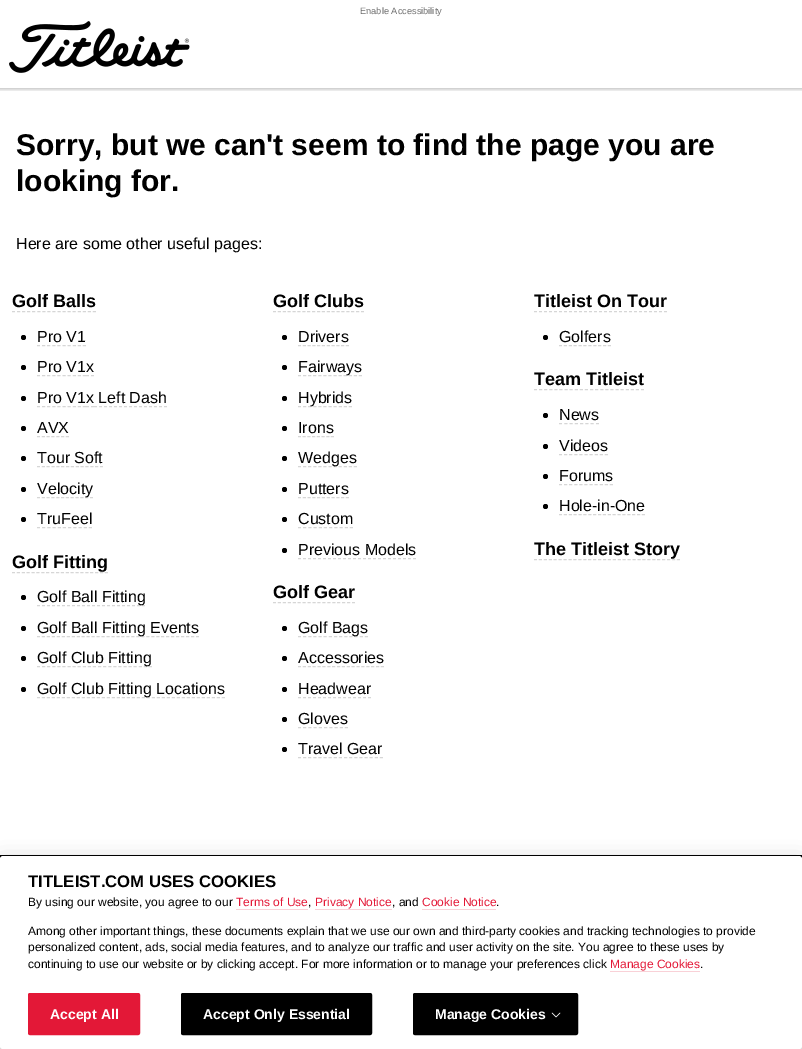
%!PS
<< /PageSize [802 1049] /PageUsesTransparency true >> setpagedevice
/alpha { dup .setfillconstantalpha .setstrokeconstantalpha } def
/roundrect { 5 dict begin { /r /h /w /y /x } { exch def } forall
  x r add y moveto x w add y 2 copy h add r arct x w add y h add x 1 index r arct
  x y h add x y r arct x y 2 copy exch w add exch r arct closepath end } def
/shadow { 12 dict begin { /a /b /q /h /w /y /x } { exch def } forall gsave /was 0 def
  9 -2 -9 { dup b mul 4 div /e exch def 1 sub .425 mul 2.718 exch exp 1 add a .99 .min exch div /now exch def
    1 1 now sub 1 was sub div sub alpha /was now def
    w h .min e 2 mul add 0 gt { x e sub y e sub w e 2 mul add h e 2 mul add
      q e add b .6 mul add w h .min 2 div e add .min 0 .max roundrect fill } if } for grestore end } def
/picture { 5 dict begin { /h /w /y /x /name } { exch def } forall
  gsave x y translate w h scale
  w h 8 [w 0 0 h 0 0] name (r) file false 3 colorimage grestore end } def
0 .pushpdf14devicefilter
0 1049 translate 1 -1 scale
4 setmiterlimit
1 setgray
0 0 802 1049 rectfill
/LiberationSans-Regular [9.25 0 0 -9.25 0 0] selectfont
0.439 setgray
360 14 moveto (Enable Accessibility) show
0 setgray
0 855 802 4 rectfill
0 862 802 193 3 10 0.3 shadow
1 setgray
0 856 802 193 3 roundrect fill
/LiberationSans-Bold [16.75 0 0 -16.75 0 0] selectfont
0 setgray
28 887 moveto (TITLEIST.COM USES COOKIES) show
/LiberationSans-Regular [12 0 0 -12 0 0] selectfont
28 906 moveto (By using our website, you agree to our) show
0.89 0.094 0.216 setrgbcolor
236 906 moveto (Terms of Use) show
0.976 0.82 0.843 setrgbcolor
236 909 72 1 rectfill
0 setgray
308 906 moveto (,) show
0.89 0.094 0.216 setrgbcolor
315 906 moveto (Privacy Notice) show
0.976 0.82 0.843 setrgbcolor
315 909 77 1 rectfill
0 setgray
392 906 moveto (, and) show
0.89 0.094 0.216 setrgbcolor
422 906 moveto (Cookie Notice) show
0.976 0.82 0.843 setrgbcolor
422 909 74 1 rectfill
0 setgray
496 906 moveto (.) show
28 935 moveto (Among other important things, these documents explain that we use our own and third-party cookies and tracking technologies to provide) show
28 951 moveto (personalized content, ads, social media features, and to analyze our traffic and user activity on the site. You agree to these uses by) show
28 968 moveto (continuing to use our website or by clicking accept. For more information or to manage your preferences click) show
0.89 0.094 0.216 setrgbcolor
610 968 moveto (Manage Cookies) show
0.976 0.82 0.843 setrgbcolor
610 971 90 1 rectfill
0 setgray
700 968 moveto (.) show
0.89 0.094 0.216 setrgbcolor
28.5 993.5 111 41 1.5 roundrect gsave fill grestore
stroke
/LiberationSans-Bold [14 0 0 -14 0 0] selectfont
1 setgray
50 1019 moveto (Accept All) show
0 setgray
181.5 993.5 190 41 1.5 roundrect gsave fill grestore
stroke
1 setgray
203 1019 moveto (Accept Only Essential) show
0 setgray
413.5 993.5 164 41 1.5 roundrect gsave fill grestore
stroke
1 setgray
435 1019 moveto (Manage Cookies) show
(img1.rgb) 551 1012 10 6 picture
(img2.rgb) 9 21 181 52 picture
gsave newpath 0 88 moveto 802 88 lineto 802 92 lineto 0 92 lineto closepath clip newpath
<< /ShadingType 2 /ColorSpace /DeviceRGB /Coords [401 88 401 92] /Extend [true true] /Function << /FunctionType 2 /Domain [0 1] /C0 [0.8 0.8 0.8] /C1 [1 1 1] /N 1 >> >> shfill grestore
/LiberationSans-Bold [30 0 0 -30 0 0] selectfont
0 setgray
16 155 moveto (Sorry, but we can't seem to find the page you are) show
16 191 moveto (looking for.) show
/LiberationSans-Regular [16 0 0 -16 0 0] selectfont
16 249 moveto (Here are some other useful pages:) show
/LiberationSans-Bold [18 0 0 -18 0 0] selectfont
12 307 moveto (Golf Balls) show
0.839 setgray
[3 2.06] 0 setdash
newpath 12 311.5 moveto 96 311.5 lineto stroke
0 setgray
newpath 23.5 337.5 2.5 0 360 arc closepath fill
/LiberationSans-Regular [16 0 0 -16 0 0] selectfont
37 342 moveto (Pro V1) show
0.839 setgray
[3 2.11] 0 setdash
newpath 37 345.5 moveto 86 345.5 lineto stroke
0 setgray
newpath 23.5 367.5 2.5 0 360 arc closepath fill
37 372 moveto (Pro V1x) show
0.839 setgray
newpath 37 375.5 moveto 86 375.5 lineto stroke
[] 0 setdash
newpath 86 375.5 moveto 89 375.5 lineto 91 375.5 moveto 94 375.5 lineto stroke
0 setgray
newpath 23.5 398.5 2.5 0 360 arc closepath fill
37 403 moveto (Pro V1x Left Dash) show
0.839 setgray
[3 2.11] 0 setdash
newpath 37 406.5 moveto 86 406.5 lineto stroke
[] 0 setdash
newpath 86 406.5 moveto 89 406.5 lineto 91 406.5 moveto 94 406.5 lineto stroke
[3 2] 0 setdash
newpath 94 406.5 moveto 167 406.5 lineto stroke
0 setgray
newpath 23.5 428.5 2.5 0 360 arc closepath fill
37 433 moveto (AVX) show
0.839 setgray
[3 1.83] 0 setdash
newpath 37 436.5 moveto 69 436.5 lineto stroke
0 setgray
newpath 23.5 458.5 2.5 0 360 arc closepath fill
37 463 moveto (Tour Soft) show
0.839 setgray
[3 1.85] 0 setdash
newpath 37 466.5 moveto 103 466.5 lineto stroke
0 setgray
newpath 23.5 489.5 2.5 0 360 arc closepath fill
0.839 setgray
[3 1.82] 0 setdash
newpath 37 497.5 moveto 93 497.5 lineto stroke
0 setgray
37 494 moveto (Velocity) show
newpath 23.5 519.5 2.5 0 360 arc closepath fill
37 524 moveto (TruFeel) show
0.839 setgray
[3 2.2] 0 setdash
newpath 37 527.5 moveto 92 527.5 lineto stroke
/LiberationSans-Bold [18 0 0 -18 0 0] selectfont
0 setgray
12 568 moveto (Golf Fitting) show
0.839 setgray
[3 1.89] 0 setdash
newpath 12 572.5 moveto 108 572.5 lineto stroke
0 setgray
newpath 23.5 597.5 2.5 0 360 arc closepath fill
0.839 setgray
[3 2] 0 setdash
newpath 37 605.5 moveto 145 605.5 lineto stroke
/LiberationSans-Regular [16 0 0 -16 0 0] selectfont
0 setgray
37 602 moveto (Golf Ball Fitting) show
newpath 23.5 628.5 2.5 0 360 arc closepath fill
0.839 setgray
[3 1.97] 0 setdash
newpath 37 636.5 moveto 199 636.5 lineto stroke
0 setgray
37 633 moveto (Golf Ball Fitting Events) show
newpath 23.5 658.5 2.5 0 360 arc closepath fill
0.839 setgray
[3 2.09] 0 setdash
newpath 37 666.5 moveto 152 666.5 lineto stroke
0 setgray
37 663 moveto (Golf Club Fitting) show
newpath 23.5 689.5 2.5 0 360 arc closepath fill
0.839 setgray
[3 2] 0 setdash
newpath 37 697.5 moveto 225 697.5 lineto stroke
0 setgray
37 694 moveto (Golf Club Fitting Locations) show
/LiberationSans-Bold [18 0 0 -18 0 0] selectfont
273 307 moveto (Golf Clubs) show
0.839 setgray
[3 1.89] 0 setdash
newpath 273 311.5 moveto 364 311.5 lineto stroke
0 setgray
newpath 284.5 337.5 2.5 0 360 arc closepath fill
/LiberationSans-Regular [16 0 0 -16 0 0] selectfont
298 342 moveto (Drivers) show
0.839 setgray
[3 1.8] 0 setdash
newpath 298 345.5 moveto 349 345.5 lineto stroke
0 setgray
newpath 284.5 367.5 2.5 0 360 arc closepath fill
0.839 setgray
[3 2.08] 0 setdash
newpath 298 375.5 moveto 362 375.5 lineto stroke
0 setgray
298 372 moveto (Fairways) show
newpath 284.5 398.5 2.5 0 360 arc closepath fill
0.839 setgray
[3 2.1] 0 setdash
newpath 298 406.5 moveto 352 406.5 lineto stroke
0 setgray
298 403 moveto (Hybrids) show
newpath 284.5 428.5 2.5 0 360 arc closepath fill
298 433 moveto (Irons) show
0.839 setgray
[3 1.71] 0 setdash
newpath 298 436.5 moveto 334 436.5 lineto stroke
0 setgray
newpath 284.5 458.5 2.5 0 360 arc closepath fill
0.839 setgray
[3 2.09] 0 setdash
newpath 298 466.5 moveto 357 466.5 lineto stroke
0 setgray
298 463 moveto (Wedges) show
newpath 284.5 489.5 2.5 0 360 arc closepath fill
298 494 moveto (Putters) show
0.839 setgray
[3 1.8] 0 setdash
newpath 298 497.5 moveto 349 497.5 lineto stroke
0 setgray
newpath 284.5 519.5 2.5 0 360 arc closepath fill
298 524 moveto (Custom) show
0.839 setgray
[3 2.2] 0 setdash
newpath 298 527.5 moveto 353 527.5 lineto stroke
0 setgray
newpath 284.5 550.5 2.5 0 360 arc closepath fill
298 555 moveto (Previous Models) show
0.839 setgray
[3 2] 0 setdash
newpath 298 558.5 moveto 416 558.5 lineto stroke
/LiberationSans-Bold [18 0 0 -18 0 0] selectfont
0 setgray
273 598 moveto (Golf Gear) show
0.839 setgray
[3 1.94] 0 setdash
newpath 273 602.5 moveto 355 602.5 lineto stroke
0 setgray
newpath 284.5 628.5 2.5 0 360 arc closepath fill
0.839 setgray
[3 2.15] 0 setdash
newpath 298 636.5 moveto 368 636.5 lineto stroke
/LiberationSans-Regular [16 0 0 -16 0 0] selectfont
0 setgray
298 633 moveto (Golf Bags) show
newpath 284.5 658.5 2.5 0 360 arc closepath fill
298 663 moveto (Accessories) show
0.839 setgray
[3 1.88] 0 setdash
newpath 298 666.5 moveto 384 666.5 lineto stroke
0 setgray
newpath 284.5 689.5 2.5 0 360 arc closepath fill
298 694 moveto (Headwear) show
0.839 setgray
[3 2] 0 setdash
newpath 298 697.5 moveto 371 697.5 lineto stroke
0 setgray
newpath 284.5 719.5 2.5 0 360 arc closepath fill
298 724 moveto (Gloves) show
0.839 setgray
[3 2.22] 0 setdash
newpath 298 727.5 moveto 348 727.5 lineto stroke
0 setgray
newpath 284.5 749.5 2.5 0 360 arc closepath fill
298 754 moveto (Travel Gear) show
0.839 setgray
[3 2.12] 0 setdash
newpath 298 757.5 moveto 383 757.5 lineto stroke
/LiberationSans-Bold [18 0 0 -18 0 0] selectfont
0 setgray
534 307 moveto (Titleist On Tour) show
0.839 setgray
[3 2] 0 setdash
newpath 534 311.5 moveto 667 311.5 lineto stroke
0 setgray
newpath 545.5 337.5 2.5 0 360 arc closepath fill
/LiberationSans-Regular [16 0 0 -16 0 0] selectfont
559 342 moveto (Golfers) show
0.839 setgray
[3 1.9] 0 setdash
newpath 559 345.5 moveto 611 345.5 lineto stroke
/LiberationSans-Bold [18 0 0 -18 0 0] selectfont
0 setgray
534 385 moveto (Team Titleist) show
0.839 setgray
[3 2.1] 0 setdash
newpath 534 389.5 moveto 644 389.5 lineto stroke
0 setgray
newpath 545.5 415.5 2.5 0 360 arc closepath fill
/LiberationSans-Regular [16 0 0 -16 0 0] selectfont
559 420 moveto (News) show
0.839 setgray
[3 2.29] 0 setdash
newpath 559 423.5 moveto 599 423.5 lineto stroke
0 setgray
newpath 545.5 446.5 2.5 0 360 arc closepath fill
559 451 moveto (Videos) show
0.839 setgray
[3 2.11] 0 setdash
newpath 559 454.5 moveto 608 454.5 lineto stroke
0 setgray
newpath 545.5 476.5 2.5 0 360 arc closepath fill
559 481 moveto (Forums) show
0.839 setgray
[3 2.1] 0 setdash
newpath 559 484.5 moveto 613 484.5 lineto stroke
0 setgray
newpath 545.5 506.5 2.5 0 360 arc closepath fill
559 511 moveto (Hole-in-One) show
0.839 setgray
[3 1.88] 0 setdash
newpath 559 514.5 moveto 645 514.5 lineto stroke
/LiberationSans-Bold [18 0 0 -18 0 0] selectfont
0 setgray
534 555 moveto (The Titleist Story) show
0.839 setgray
[3 1.93] 0 setdash
newpath 534 559.5 moveto 680 559.5 lineto stroke
.poppdf14devicefilter showpage
